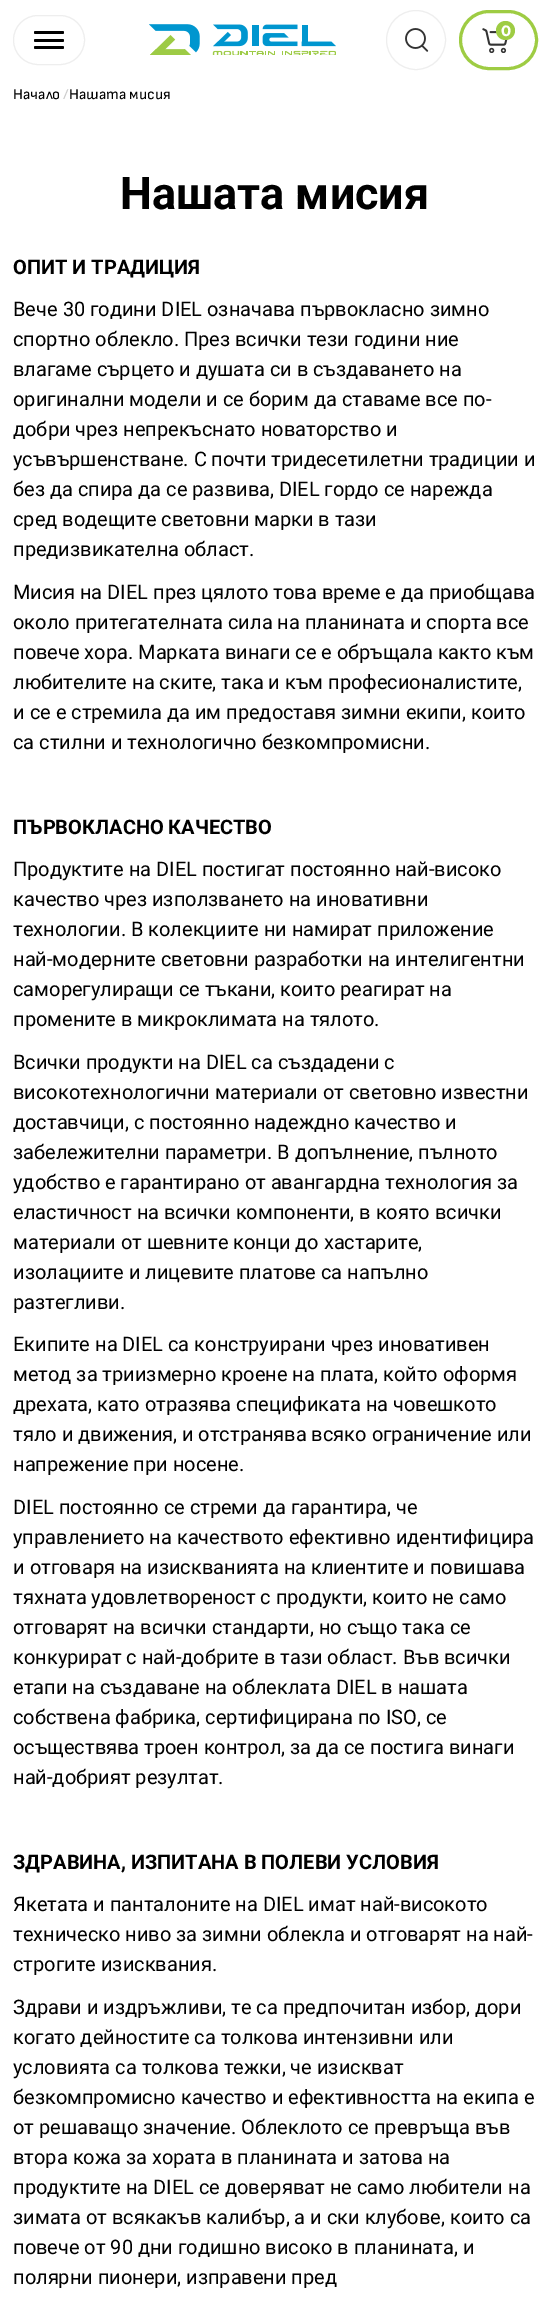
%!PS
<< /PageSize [549 2301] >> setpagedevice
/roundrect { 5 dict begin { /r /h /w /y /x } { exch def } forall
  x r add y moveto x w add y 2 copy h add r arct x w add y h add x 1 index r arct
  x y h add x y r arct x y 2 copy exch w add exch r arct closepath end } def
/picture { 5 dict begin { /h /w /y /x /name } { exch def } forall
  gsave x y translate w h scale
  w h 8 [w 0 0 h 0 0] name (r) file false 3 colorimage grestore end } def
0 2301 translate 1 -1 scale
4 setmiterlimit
1 setgray
0 0 549 2301 rectfill
0.933 setgray
13.5 15.5 71 49 24.5 roundrect stroke
0 setgray
34 31 30 3 1.5 roundrect fill
34 39 30 3 1.5 roundrect fill
34 46 30 3 1.5 roundrect fill
(img1.rgb) 149 24 187 31 picture
0.933 setgray
newpath 416 40 29.5 0 360 arc closepath stroke
(img2.rgb) 405 28 24 24 picture
0.62 0.8 0.263 setrgbcolor
3 setlinewidth
460.5 11.5 76 57 28.5 roundrect stroke
(img3.rgb) 482 28 26 25 picture
newpath 505.5 30.5 9.5 0 360 arc closepath fill
/Montserrat-Bold [15 0 0 -15 0 0] selectfont
1 setgray
501 36 moveto (0) show
/SofiaSans-Regular [15 0 0 -15 0 0] selectfont
0 setgray
13 99 moveto (Начало) show
0.8 setgray
63 99 moveto (/) show
0 setgray
69 99 moveto (Нашата мисия) show
/Roboto-Bold [45 0 0 -45 0 0] selectfont
120 209 moveto (Нашата мисия) show
/Roboto-Bold [20 0 0 -20 0 0] selectfont
13 274 moveto (ОПИТ И ТРАДИЦИЯ) show
/Roboto-Regular [20 0 0 -20 0 0] selectfont
13 316 moveto (Вече 30 години DIEL означава първокласно зимно) show
13 346 moveto (спортно облекло. През всички тези години ние) show
13 376 moveto (влагаме сърцето и душата си в създаването на) show
13 406 moveto (оригинални модели и се борим да ставаме все по-) show
13 436 moveto (добри чрез непрекъснато новаторство и) show
13 466 moveto (усъвършенстване. С почти тридесетилетни традиции и) show
13 496 moveto (без да спира да се развива, DIEL гордо се нарежда) show
13 526 moveto (сред водещите световни марки в тази) show
13 556 moveto (предизвикателна област.) show
13 599 moveto (Mисия на DIEL през цялото това време е да приобщава) show
13 629 moveto (около притегателната сила на планината и спорта все) show
13 659 moveto (повече хора. Марката винаги се е обръщала както към) show
13 689 moveto (любителите на ските, така и към професионалистите,) show
13 719 moveto (и се е стремила да им предоставя зимни екипи, които) show
13 749 moveto (са стилни и технологично безкомпромисни.) show
/Roboto-Bold [20 0 0 -20 0 0] selectfont
13 834 moveto (ПЪРВОКЛАСНО КАЧЕСТВО) show
/Roboto-Regular [20 0 0 -20 0 0] selectfont
13 876 moveto (Продуктите на DIEL постигат постоянно най-високо) show
13 906 moveto (качество чрез използването на иновативни) show
13 936 moveto (технологии. В колекциите ни намират приложение) show
13 966 moveto (най-модерните световни разработки на интелигентни) show
13 996 moveto (саморегулиращи се тъкани, които реагират на) show
13 1026 moveto (промените в микроклимата на тялото.) show
13 1069 moveto (Всички продукти на DIEL са създадени с) show
13 1099 moveto (високотехнологични материали от световно известни) show
13 1129 moveto (доставчици, с постоянно надеждно качество и) show
13 1159 moveto (забележителни параметри. В допълнение, пълното) show
13 1189 moveto (удобство е гарантирано от авангардна технология за) show
13 1219 moveto (еластичност на всички компоненти, в която всички) show
13 1249 moveto (материали от шевните конци до хастарите,) show
13 1279 moveto (изолациите и лицевите платове са напълно) show
13 1309 moveto (разтегливи.) show
13 1351 moveto (Екипите на DIEL са конструирани чрез иновативен) show
13 1381 moveto (метод за триизмерно кроене на плата, който оформя) show
13 1411 moveto (дрехата, като отразява спецификата на човешкото) show
13 1441 moveto (тяло и движения, и отстранява всяко ограничение или) show
13 1471 moveto (напрежение при носене.) show
13 1514 moveto (DIEL постоянно се стреми да гарантира, че) show
13 1544 moveto (управлението на качеството ефективно идентифицира) show
13 1574 moveto (и отговаря на изискванията на клиентите и повишава) show
13 1604 moveto (тяхната удовлетвореност с продукти, които не само) show
13 1634 moveto (отговарят на всички стандарти, но също така се) show
13 1664 moveto (конкурират с най-добрите в тази област. Във всички) show
13 1694 moveto (етапи на създаване на облеклата DIEL в нашата) show
13 1724 moveto (собствена фабрика, сертифицирана по ISO, се) show
13 1754 moveto (осъществява троен контрол, за да се постига винаги) show
13 1784 moveto (най-добрият резултат.) show
/Roboto-Bold [20 0 0 -20 0 0] selectfont
13 1869 moveto (ЗДРАВИНА, ИЗПИТАНА В ПОЛЕВИ УСЛОВИЯ) show
/Roboto-Regular [20 0 0 -20 0 0] selectfont
13 1911 moveto (Якетата и панталоните на DIEL имат най-високото) show
13 1941 moveto (техническо ниво за зимни облекла и отговарят на най-) show
13 1971 moveto (строгите изисквания.) show
13 2014 moveto (Здрави и издръжливи, те са предпочитан избор, дори) show
13 2044 moveto (когато дейностите са толкова интензивни или) show
13 2074 moveto (условията са толкова тежки, че изискват) show
13 2104 moveto (безкомпромисно качество и ефективността на екипа е) show
13 2134 moveto (от решаващо значение. Облеклото се превръща във) show
13 2164 moveto (втора кожа за хората в планината и затова на) show
13 2194 moveto (продуктите на DIEL се доверяват не само любители на) show
13 2224 moveto (зимата от всякакъв калибър, а и ски клубове, които са) show
13 2254 moveto (повече от 90 дни годишно високо в планината, и) show
13 2284 moveto (полярни пионери, изправени пред) show
showpage
